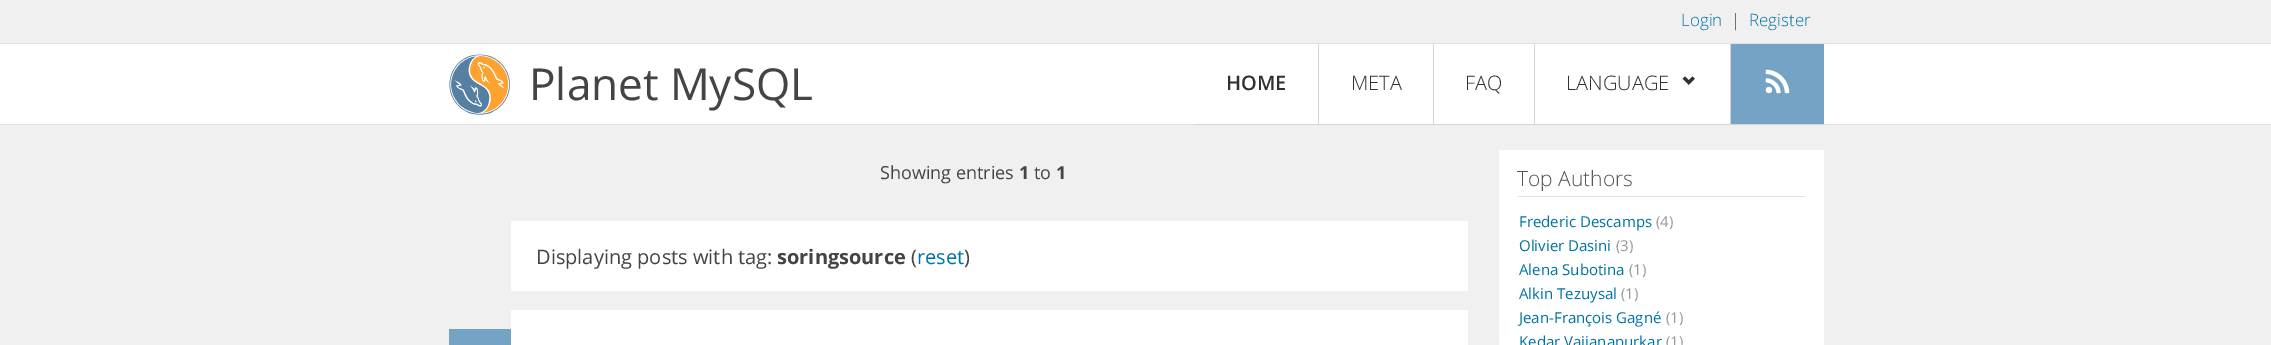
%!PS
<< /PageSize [2271 345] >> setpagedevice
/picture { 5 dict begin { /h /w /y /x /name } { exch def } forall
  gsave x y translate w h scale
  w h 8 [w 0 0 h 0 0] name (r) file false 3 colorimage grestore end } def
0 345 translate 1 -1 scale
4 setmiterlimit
0.941 setgray
0 0 2271 345 rectfill
0.886 setgray
0 43 2271 1 rectfill
/OpenSans-Light [17 0 0 -17 0 0] selectfont
0 0.455 0.639 setrgbcolor
1681 26 moveto (Login) show
0.267 setgray
1731 26 moveto (|) show
0 0.455 0.639 setrgbcolor
1749 26 moveto (Register) show
1 setgray
0 44 2271 80 rectfill
0.886 setgray
0 124 2271 1 rectfill
(img1.rgb) 449 54 61 61 picture
/OpenSans-Regular [44 0 0 -44 0 0] selectfont
0.267 setgray
529 100 moveto (Planet MySQL) show
0.824 0.839 0.835 setrgbcolor
1195 124 629 1 rectfill
/OpenSans-SemiBold [20 0 0 -20 0 0] selectfont
0.192 setgray
1226 90 moveto (HOME) show
0.824 0.839 0.835 setrgbcolor
1318 44 1 81 rectfill
/OpenSans-Light [20 0 0 -20 0 0] selectfont
0.192 setgray
1351 90 moveto (META) show
0.824 0.839 0.835 setrgbcolor
1433 44 1 81 rectfill
0.192 setgray
1465 90 moveto (FAQ) show
0.824 0.839 0.835 setrgbcolor
1534 44 1 81 rectfill
0.192 setgray
1566 90 moveto (LANGUAGE) show
(img2.rgb) 1682 76 13 9 picture
0.824 0.839 0.835 setrgbcolor
1730 44 1 81 rectfill
0.455 0.639 0.776 setrgbcolor
1731 44 93 80 rectfill
(img3.rgb) 1765 69 25 25 picture
/OpenSans-Regular [18 0 0 -18 0 0] selectfont
0.267 setgray
880 179 moveto (Showing entries) show
/OpenSans-Bold [18 0 0 -18 0 0] selectfont
1019 179 moveto (1) show
/OpenSans-Regular [18 0 0 -18 0 0] selectfont
1034 179 moveto (to) show
/OpenSans-Bold [18 0 0 -18 0 0] selectfont
1056 179 moveto (1) show
1 setgray
511 221 957 70 rectfill
/OpenSans-Regular [20 0 0 -20 0 0] selectfont
0.267 setgray
536 264 moveto (Displaying posts with tag:) show
/OpenSans-Bold [20 0 0 -20 0 0] selectfont
777 264 moveto (soringsource) show
/OpenSans-Regular [20 0 0 -20 0 0] selectfont
911 264 moveto (\() show
0 0.455 0.639 setrgbcolor
917 264 moveto (reset) show
0.267 setgray
964 264 moveto (\)) show
1 setgray
511 310 957 35 rectfill
0.455 0.639 0.776 setrgbcolor
449 329 62 16 rectfill
1 setgray
1499 150 325 195 rectfill
0.886 setgray
1518 196 287 1 rectfill
/OpenSans-Light [21 0 0 -21 0 0] selectfont
0.333 setgray
1517 186 moveto (Top Authors) show
/OpenSans-Regular [15 0 0 -15 0 0] selectfont
0 0.455 0.639 setrgbcolor
1519 227 moveto (Frederic Descamps) show
0.6 setgray
1656 227 moveto (\(4\)) show
0 0.455 0.639 setrgbcolor
1519 251 moveto (Olivier Dasini) show
0.6 setgray
1616 251 moveto (\(3\)) show
0 0.455 0.639 setrgbcolor
1519 275 moveto (Alena Subotina) show
0.6 setgray
1629 275 moveto (\(1\)) show
0 0.455 0.639 setrgbcolor
1519 299 moveto (Alkin Tezuysal) show
0.6 setgray
1621 299 moveto (\(1\)) show
0 0.455 0.639 setrgbcolor
1519 323 moveto (Jean-François Gagné) show
0.6 setgray
1666 323 moveto (\(1\)) show
0 0.455 0.639 setrgbcolor
1519 347 moveto (Kedar Vaijanapurkar) show
0.6 setgray
1666 347 moveto (\(1\)) show
showpage
